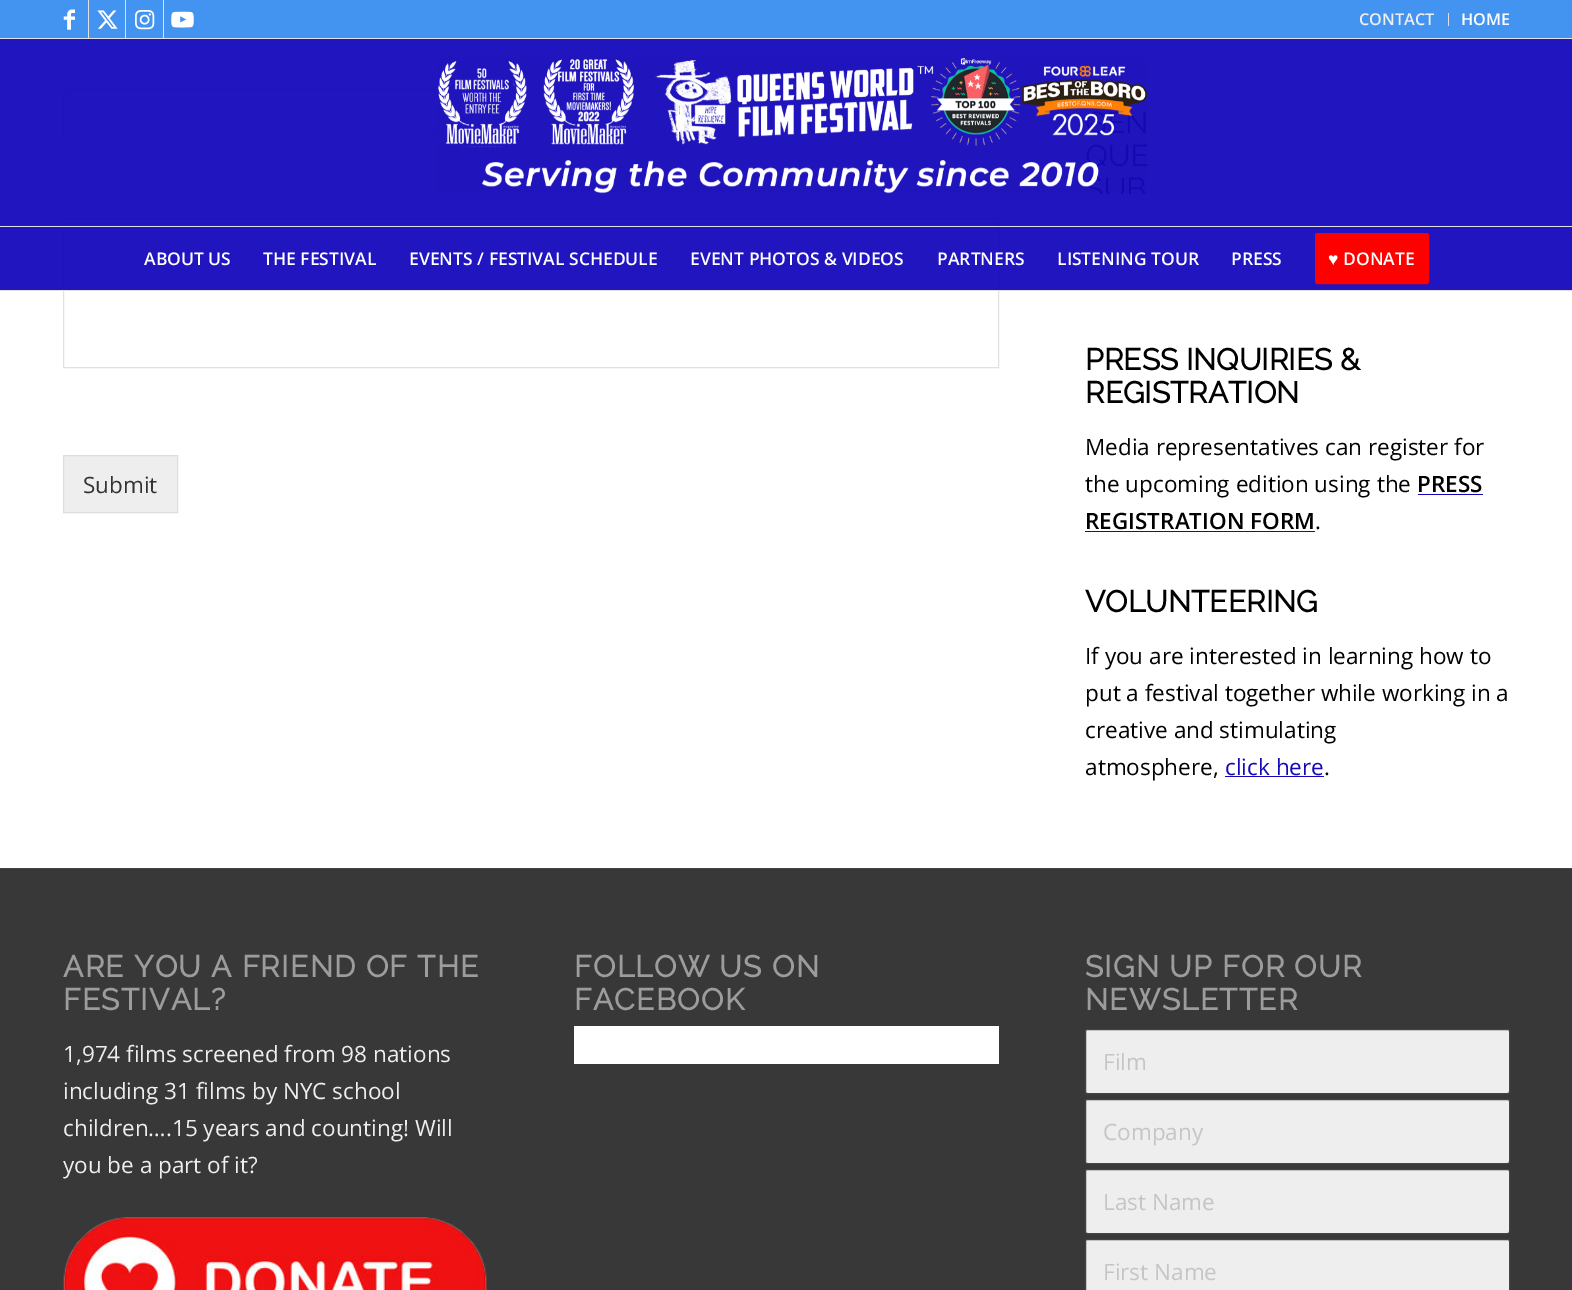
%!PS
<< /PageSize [1572 1290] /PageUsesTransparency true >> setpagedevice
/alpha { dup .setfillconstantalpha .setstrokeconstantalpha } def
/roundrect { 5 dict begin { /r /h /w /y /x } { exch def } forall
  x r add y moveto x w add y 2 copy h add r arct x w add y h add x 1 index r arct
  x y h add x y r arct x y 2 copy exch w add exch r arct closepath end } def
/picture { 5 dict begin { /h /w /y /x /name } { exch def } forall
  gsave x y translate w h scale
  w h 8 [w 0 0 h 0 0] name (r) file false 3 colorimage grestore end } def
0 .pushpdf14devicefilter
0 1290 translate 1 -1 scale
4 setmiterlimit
1 setgray
0 0 1572 1290 rectfill
0.263 0.58 0.941 setrgbcolor
0 0 1572 38 rectfill
0.882 setgray
0 38 1572 1 rectfill
88 0 1 38 rectfill
(img1.rgb) 63 9 12 21 picture
125 0 1 38 rectfill
(img2.rgb) 97 10 21 19 picture
163 0 1 38 rectfill
(img3.rgb) 135 10 20 20 picture
(img4.rgb) 171 11 23 17 picture
1448 13 1 13 rectfill
/OpenSans-SemiBold [16.25 0 0 -16.25 0 0] selectfont
0.933 setgray
1359 25 moveto (CONTACT) show
1 setgray
1461 25 moveto (HOME) show
0.882 setgray
63.5 89.5 560 46 rectstroke
63.5 218.5 935 149 rectstroke
0.95 alpha
0.078 0.031 0.729 setrgbcolor
0 39 1572 251 rectfill
1 alpha
0.882 setgray
0 290 1572 1 rectfill
(img5.rgb) 438 58 709 136 picture
0 226 1572 1 rectfill
/OpenSans-SemiBold [17.5 0 0 -17.5 0 0] selectfont
1 setgray
144 265 moveto (ABOUT US) show
263 265 moveto (THE FESTIVAL) show
409 265 moveto (EVENTS / FESTIVAL SCHEDULE) show
690 265 moveto (EVENT PHOTOS & VIDEOS) show
937 265 moveto (PARTNERS) show
1057 265 moveto (LISTENING TOUR) show
1231 265 moveto (PRESS) show
1 0 0 setrgbcolor
1316.5 234.5 111 48 1 roundrect gsave fill grestore
3 setlinewidth
stroke
/LiberationSans-Bold [17.5 0 0 -17.5 0 0] selectfont
1 setgray
1328 265 moveto (♥) show
/OpenSans-SemiBold [17.5 0 0 -17.5 0 0] selectfont
1343 265 moveto (DONATE) show
0.933 setgray
newpath 63.5 455.5 moveto 177.5 455.5 lineto 177.5 512.5 lineto 63.5 512.5 lineto closepath gsave fill grestore
0.867 setgray
1 setlinewidth
stroke
/OpenSans-Regular [22.5 0 0 -22.5 0 0] selectfont
0.2 setgray
83 493 moveto (Submit) show
/Raleway-Bold [30 0 0 -30 0 0] selectfont
0 setgray
1085 370 moveto (PRESS INQUIRIES &) show
1085 403 moveto (REGISTRATION) show
/OpenSans-Regular [22.5 0 0 -22.5 0 0] selectfont
1085 455 moveto (Media representatives can register for) show
1085 492 moveto (the upcoming edition using the) show
/OpenSans-SemiBold [22.5 0 0 -22.5 0 0] selectfont
1417 492 moveto (PRESS) show
0.078 0.031 0.729 setrgbcolor
1418 494 65 1 rectfill
0 setgray
1085 529 moveto (REGISTRATION FORM) show
0.078 0.031 0.729 setrgbcolor
1085 531 230 1 rectfill
/OpenSans-Regular [22.5 0 0 -22.5 0 0] selectfont
0 setgray
1315 529 moveto (.) show
/Raleway-Bold [30 0 0 -30 0 0] selectfont
1085 612 moveto (VOLUNTEERING) show
/OpenSans-Regular [22.5 0 0 -22.5 0 0] selectfont
1085 664 moveto (If you are interested in learning how to) show
1085 701 moveto (put a festival together while working in a) show
1085 738 moveto (creative and stimulating) show
1085 775 moveto (atmosphere,) show
0.078 0.031 0.729 setrgbcolor
1225 775 moveto (click here) show
1225 776 99 1 rectfill
0 setgray
1324 775 moveto (.) show
0.22 setgray
0 869 1572 421 rectfill
0.267 setgray
0 868 1572 1 rectfill
/Raleway-Bold [30 0 0 -30 0 0] selectfont
0.612 setgray
63 977 moveto 1.25 0 (ARE YOU A FRIEND OF THE) ashow
63 1010 moveto 1.25 0 (FESTIVAL?) ashow
/OpenSans-Regular [22.5 0 0 -22.5 0 0] selectfont
0.933 setgray
63 1062 moveto (1,974 films screened from 98 nations) show
63 1099 moveto (including 31 films by NYC school) show
63 1136 moveto (children….15 years and counting! Will) show
gsave
63 925 425 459 rectclip
63 1173 moveto (you be a part of it?) show
grestore
(img6.rgb) 63 1217 424 73 picture
/Raleway-Bold [30 0 0 -30 0 0] selectfont
0.612 setgray
574 977 moveto 1.25 0 (FOLLOW US ON) ashow
574 1010 moveto 1.25 0 (FACEBOOK) ashow
1 setgray
574 1026 425 38 rectfill
0.612 setgray
1085 977 moveto 1.25 0 (SIGN UP FOR OUR) ashow
1085 1010 moveto 1.25 0 (NEWSLETTER) ashow
0.933 setgray
1085.5 1029.5 424 64 2 roundrect gsave fill grestore
0.267 setgray
stroke
/OpenSans-Regular [22.5 0 0 -22.5 0 0] selectfont
0.773 setgray
1103 1070 moveto (Film) show
0.933 setgray
1085.5 1099.5 424 64 2 roundrect gsave fill grestore
0.267 setgray
stroke
0.773 setgray
1103 1140 moveto (Company) show
0.933 setgray
1085.5 1169.5 424 64 2 roundrect gsave fill grestore
0.267 setgray
stroke
0.773 setgray
1103 1210 moveto (Last Name) show
0.933 setgray
1085.5 1239.5 424 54 2 roundrect gsave fill grestore
0.267 setgray
stroke
0.773 setgray
1103 1280 moveto (First Name) show
.poppdf14devicefilter showpage
